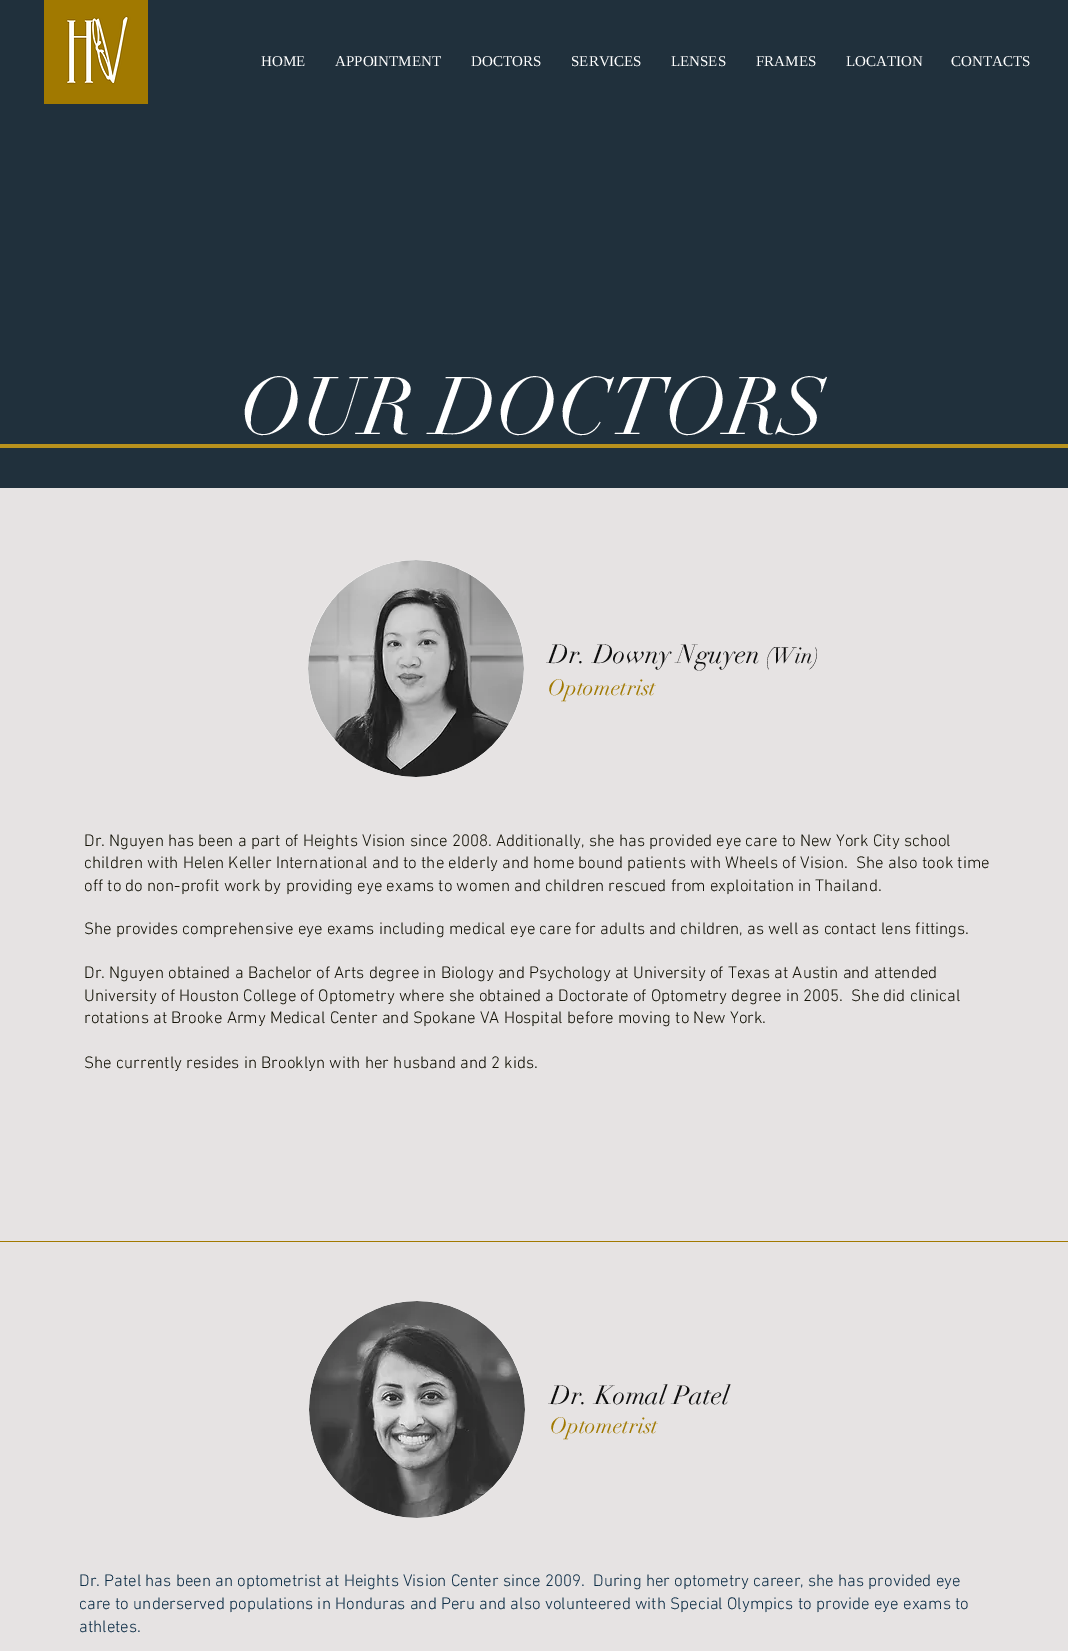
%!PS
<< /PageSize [1068 1651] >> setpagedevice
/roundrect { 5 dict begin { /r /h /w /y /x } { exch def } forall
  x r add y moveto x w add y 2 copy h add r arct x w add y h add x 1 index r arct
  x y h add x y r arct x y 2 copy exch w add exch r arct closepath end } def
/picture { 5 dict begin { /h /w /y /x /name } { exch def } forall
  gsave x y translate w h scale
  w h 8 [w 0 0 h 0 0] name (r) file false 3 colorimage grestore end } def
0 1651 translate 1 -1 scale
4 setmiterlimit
0.902 0.89 0.89 setrgbcolor
0 0 1068 1651 rectfill
0.125 0.188 0.235 setrgbcolor
0 0 1068 488 rectfill
/LiberationSerif-Regular [15 0 0 -15 0 0] selectfont
1 setgray
261 66 moveto (HOME) show
335 66 moveto (APPOINTMENT) show
471 66 moveto (DOCTORS) show
571 66 moveto (SERVICES) show
671 66 moveto (LENSES) show
756 66 moveto (FRAMES) show
846 66 moveto (LOCATION) show
951 66 moveto (CONTACTS) show
(img1.rgb) 44 0 104 104 picture
/didot-Regular [80 0 0 -80 0 0] selectfont
240 434 moveto (OUR DOCTORS) show
0.722 0.569 0.114 setrgbcolor
0 444 1068 4 rectfill
1 setgray
308 560 216 217 108 roundrect fill
(img2.rgb) 308 560 216 217 picture
/didot-Regular [26 0 0 -26 0 0] selectfont
0.059 setgray
548 663 moveto (Dr. Downy Nguyen) show
/didot-Regular [22 0 0 -22 0 0] selectfont
766 663 moveto (\(Win\)) show
0.631 0.475 0 setrgbcolor
548 695 moveto (Optometrist) show
/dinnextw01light-Light [17 0 0 -17 0 0] selectfont
0.078 0.075 0.027 setrgbcolor
84 846 moveto (Dr. Nguyen has been a part of Heights Vision since 2008. Additionally, she has provided eye care to New York City school) show
84 868 moveto (children with Helen Keller International and to the elderly and home bound patients with Wheels of Vision.  She also took time) show
84 891 moveto (off to do non-profit work by providing eye exams to women and children rescued from exploitation in Thailand.) show
84 934 moveto (She provides comprehensive eye exams including medical eye care for adults and children, as well as contact lens fittings.) show
84 978 moveto (Dr. Nguyen obtained a Bachelor of Arts degree in Biology and Psychology at University of Texas at Austin and attended) show
84 1001 moveto (University of Houston College of Optometry where she obtained a Doctorate of Optometry degree in 2005.  She did clinical) show
84 1023 moveto (rotations at Brooke Army Medical Center and Spokane VA Hospital before moving to New York.) show
84 1068 moveto (She currently resides in Brooklyn with her husband and 2 kids.) show
0.631 0.475 0 setrgbcolor
0 1241 1068 1 rectfill
1 setgray
309 1301 216 217 108 roundrect fill
(img3.rgb) 309 1301 216 217 picture
/didot-Regular [26 0 0 -26 0 0] selectfont
0.059 setgray
550 1404 moveto (Dr. Komal Patel) show
/didot-Regular [22 0 0 -22 0 0] selectfont
0.631 0.475 0 setrgbcolor
550 1433 moveto (Optometrist) show
/dinnextw01light-Light [17 0 0 -17 0 0] selectfont
0.055 0.18 0.278 setrgbcolor
79 1586 moveto (Dr. Patel has been an optometrist at Heights Vision Center since 2009.  During her optometry career, she has provided eye) show
79 1609 moveto (care to underserved populations in Honduras and Peru and also volunteered with Special Olympics to provide eye exams to) show
79 1632 moveto (athletes.) show
showpage
